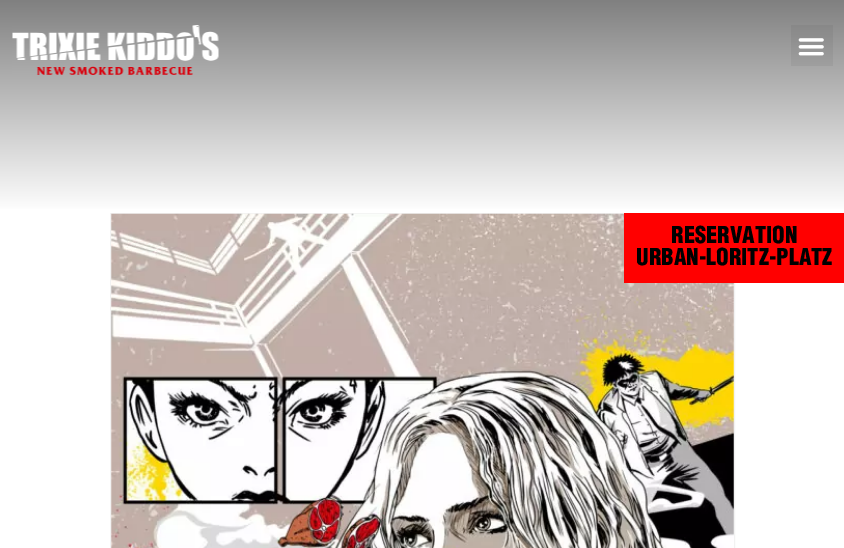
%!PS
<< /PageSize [844 548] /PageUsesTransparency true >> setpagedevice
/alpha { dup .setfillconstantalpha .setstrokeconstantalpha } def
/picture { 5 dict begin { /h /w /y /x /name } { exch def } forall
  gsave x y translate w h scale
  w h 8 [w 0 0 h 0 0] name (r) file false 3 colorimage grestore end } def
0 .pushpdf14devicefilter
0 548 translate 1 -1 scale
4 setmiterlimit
1 setgray
0 0 844 548 rectfill
0.949 setgray
110.5 213.5 624 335 rectstroke
(img1.rgb) 111 213 623 335 picture
gsave newpath 0 0 moveto 844 0 lineto 844 209 lineto 0 209 lineto closepath clip newpath
<< /ShadingType 2 /ColorSpace /DeviceRGB /Coords [423 0 423 213] /Extend [true true] /Function << /FunctionType 2 /Domain [0 1] /C0 [0.502 0.502 0.502] /C1 [1 1 1] /N 1 >> >> shfill grestore
(img2.rgb) 12 25 207 50 picture
0.05 alpha
0 setgray
791 25 42 41 rectfill
1 alpha
(img3.rgb) 798 38 26 18 picture
1 0 0 setrgbcolor
624 213 220 70 rectfill
/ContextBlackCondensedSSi-Black [22.5 0 0 -22.5 0 0] selectfont
0 setgray
671 243 moveto (RESERVATION) show
636 265 moveto (URBAN-LORITZ-PLATZ) show
.poppdf14devicefilter showpage
